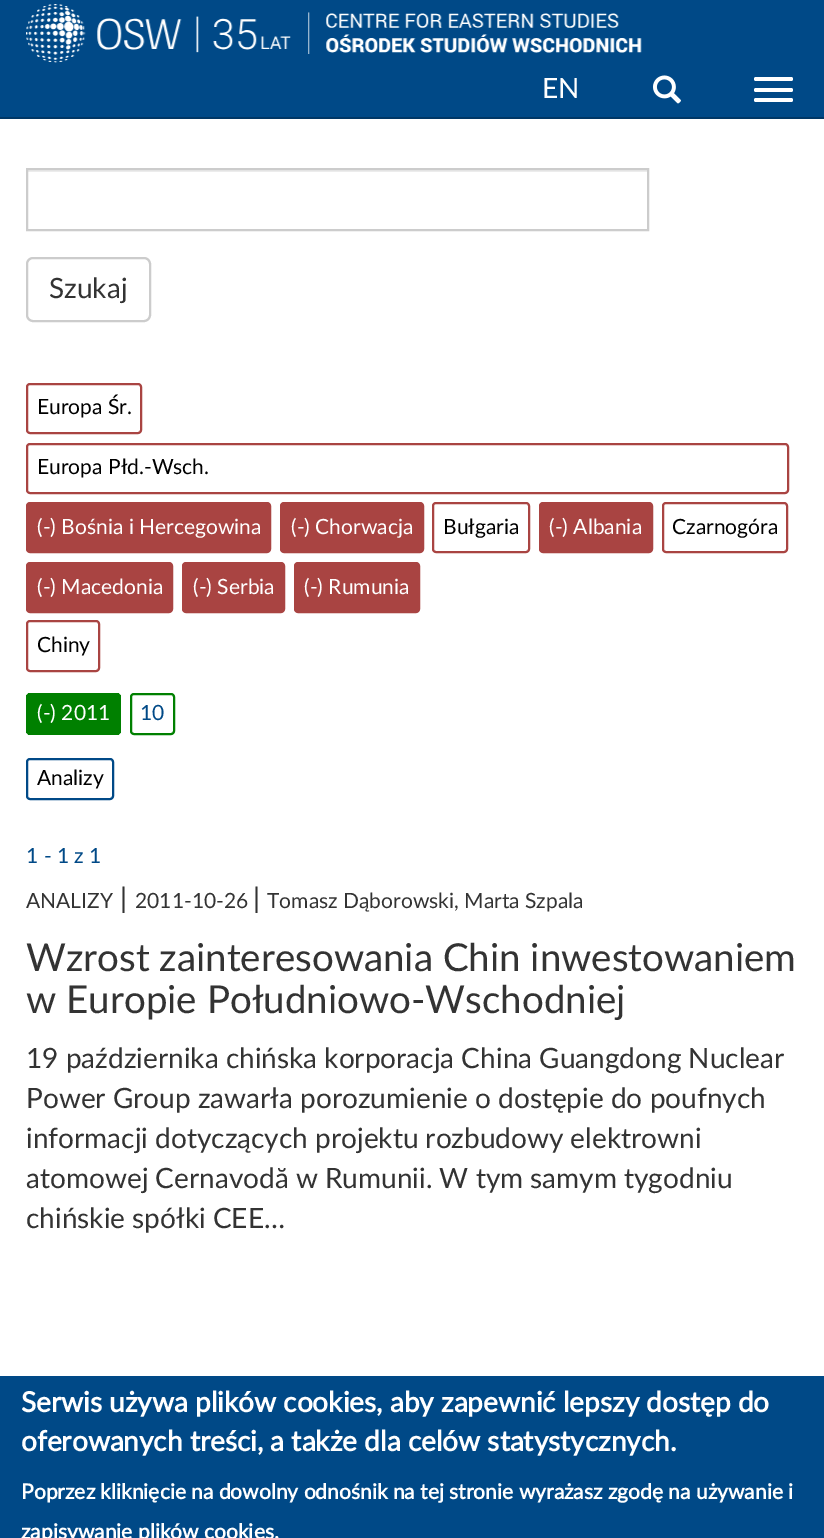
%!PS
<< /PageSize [824 1538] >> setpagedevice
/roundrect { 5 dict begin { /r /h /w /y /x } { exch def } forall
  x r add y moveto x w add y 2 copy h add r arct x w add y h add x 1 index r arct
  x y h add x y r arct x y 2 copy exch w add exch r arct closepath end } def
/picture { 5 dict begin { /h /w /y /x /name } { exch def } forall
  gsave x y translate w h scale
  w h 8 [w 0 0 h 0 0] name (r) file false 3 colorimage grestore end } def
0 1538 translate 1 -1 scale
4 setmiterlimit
1 setgray
0 0 824 1538 rectfill
0 0.286 0.529 setrgbcolor
0 0 824 117 rectfill
0 0.216 0.4 setrgbcolor
0 117 824 2 rectfill
(img1.rgb) 26 4 265 59 picture
(img2.rgb) 308 12 334 42 picture
/Lato-Regular [28 0 0 -28 0 0] selectfont
1 setgray
542 98 moveto (EN) show
(img3.rgb) 653 75 28 29 picture
754 77 39 4 2 roundrect fill
754 88 39 4 2 roundrect fill
754 98 39 4 2 roundrect fill
0.925 setgray
28 170 620 2 rectfill
0.8 setgray
2 setlinewidth
27 169 621 61 rectstroke
27 258 123 63 6 roundrect stroke
0.2 setgray
49 298 moveto (Szukaj) show
0.663 0.267 0.259 setrgbcolor
27 384 114 49 3 roundrect stroke
/Lato-Regular [21 0 0 -21 0 0] selectfont
0 setgray
37 414 moveto (Europa Śr.) show
0.663 0.267 0.259 setrgbcolor
27 444 761 49 3 roundrect stroke
0 setgray
37 474 moveto (Europa Płd.-Wsch.) show
0.663 0.267 0.259 setrgbcolor
27 503 243 49 3 roundrect gsave fill grestore
stroke
1 setgray
37 534 moveto (\(-\) Bośnia i Hercegowina) show
0.663 0.267 0.259 setrgbcolor
281 503 142 49 3 roundrect gsave fill grestore
stroke
1 setgray
291 534 moveto (\(-\) Chorwacja) show
0.663 0.267 0.259 setrgbcolor
433 503 96 49 3 roundrect stroke
0 setgray
443 534 moveto (Bułgaria) show
0.663 0.267 0.259 setrgbcolor
540 503 112 49 3 roundrect gsave fill grestore
stroke
1 setgray
549 534 moveto (\(-\) Albania) show
0.663 0.267 0.259 setrgbcolor
663 503 124 49 3 roundrect stroke
0 setgray
672 534 moveto (Czarnogóra) show
0.663 0.267 0.259 setrgbcolor
27 563 145 49 3 roundrect gsave fill grestore
stroke
1 setgray
37 594 moveto (\(-\) Macedonia) show
0.663 0.267 0.259 setrgbcolor
183 563 101 49 3 roundrect gsave fill grestore
stroke
1 setgray
193 594 moveto (\(-\) Serbia) show
0.663 0.267 0.259 setrgbcolor
295 563 124 49 3 roundrect gsave fill grestore
stroke
1 setgray
304 594 moveto (\(-\) Rumunia) show
0.663 0.267 0.259 setrgbcolor
27 621 72 50 3 roundrect stroke
0 setgray
37 652 moveto (Chiny) show
0 0.502 0 setrgbcolor
newpath 30 693 moveto 56 693 lineto 56 735 lineto 30 735 lineto 28 735 26 733 26 731 curveto 26 697 lineto 26 695 28 693 30 693 curveto closepath fill
56 693 5 42 rectfill
newpath 61 693 moveto 117 693 lineto 119 693 121 695 121 697 curveto 121 731 lineto 121 733 119 735 117 735 curveto 61 735 lineto closepath fill
1 setgray
37 720 moveto (\(-\) 2011) show
0 0.502 0 setrgbcolor
28 693 2 1 rectfill
28 734 2 1 rectfill
26 695 1 38 rectfill
117 693 2 1 rectfill
120 695 1 38 rectfill
117 734 2 1 rectfill
131 694 43 40 3 roundrect stroke
0 0.286 0.529 setrgbcolor
140 720 moveto (10) show
27 759 86 40 3 roundrect stroke
0 setgray
37 785 moveto (Analizy) show
0 0.286 0.529 setrgbcolor
26 863 moveto (1 - 1 z 1) show
0.2 setgray
26 908 moveto (ANALIZY) show
/Lato-Regular [28 0 0 -28 0 0] selectfont
120 908 moveto (|) show
/Lato-Regular [21 0 0 -21 0 0] selectfont
135 908 moveto (2011-10-26) show
/Lato-Regular [28 0 0 -28 0 0] selectfont
253 908 moveto (|) show
/Lato-Regular [21 0 0 -21 0 0] selectfont
267 908 moveto (Tomasz Dąborowski, Marta Szpala) show
/Lato-Regular [38.5 0 0 -38.5 0 0] selectfont
26 971 moveto (Wzrost zainteresowania Chin inwestowaniem) show
26 1013 moveto (w Europie Południowo-Wschodniej) show
/Lato-Regular [28 0 0 -28 0 0] selectfont
26 1068 moveto (19 października chińska korporacja China Guangdong Nuclear) show
26 1108 moveto (Power Group zawarła porozumienie o dostępie do poufnych) show
26 1148 moveto (informacji dotyczących projektu rozbudowy elektrowni) show
26 1188 moveto (atomowej Cernavodă w Rumunii. W tym samym tygodniu) show
26 1228 moveto (chińskie spółki CEE…) show
0 0.286 0.529 setrgbcolor
0 1376 824 162 rectfill
/Lato-Bold [28 0 0 -28 0 0] selectfont
1 setgray
21 1412 moveto (Serwis używa plików cookies, aby zapewnić lepszy dostęp do) show
21 1451 moveto (oferowanych treści, a także dla celów statystycznych.) show
/Lato-Bold [21 0 0 -21 0 0] selectfont
21 1499 moveto (Poprzez kliknięcie na dowolny odnośnik na tej stronie wyrażasz zgodę na używanie i) show
21 1539 moveto (zapisywanie plików cookies.) show
showpage
